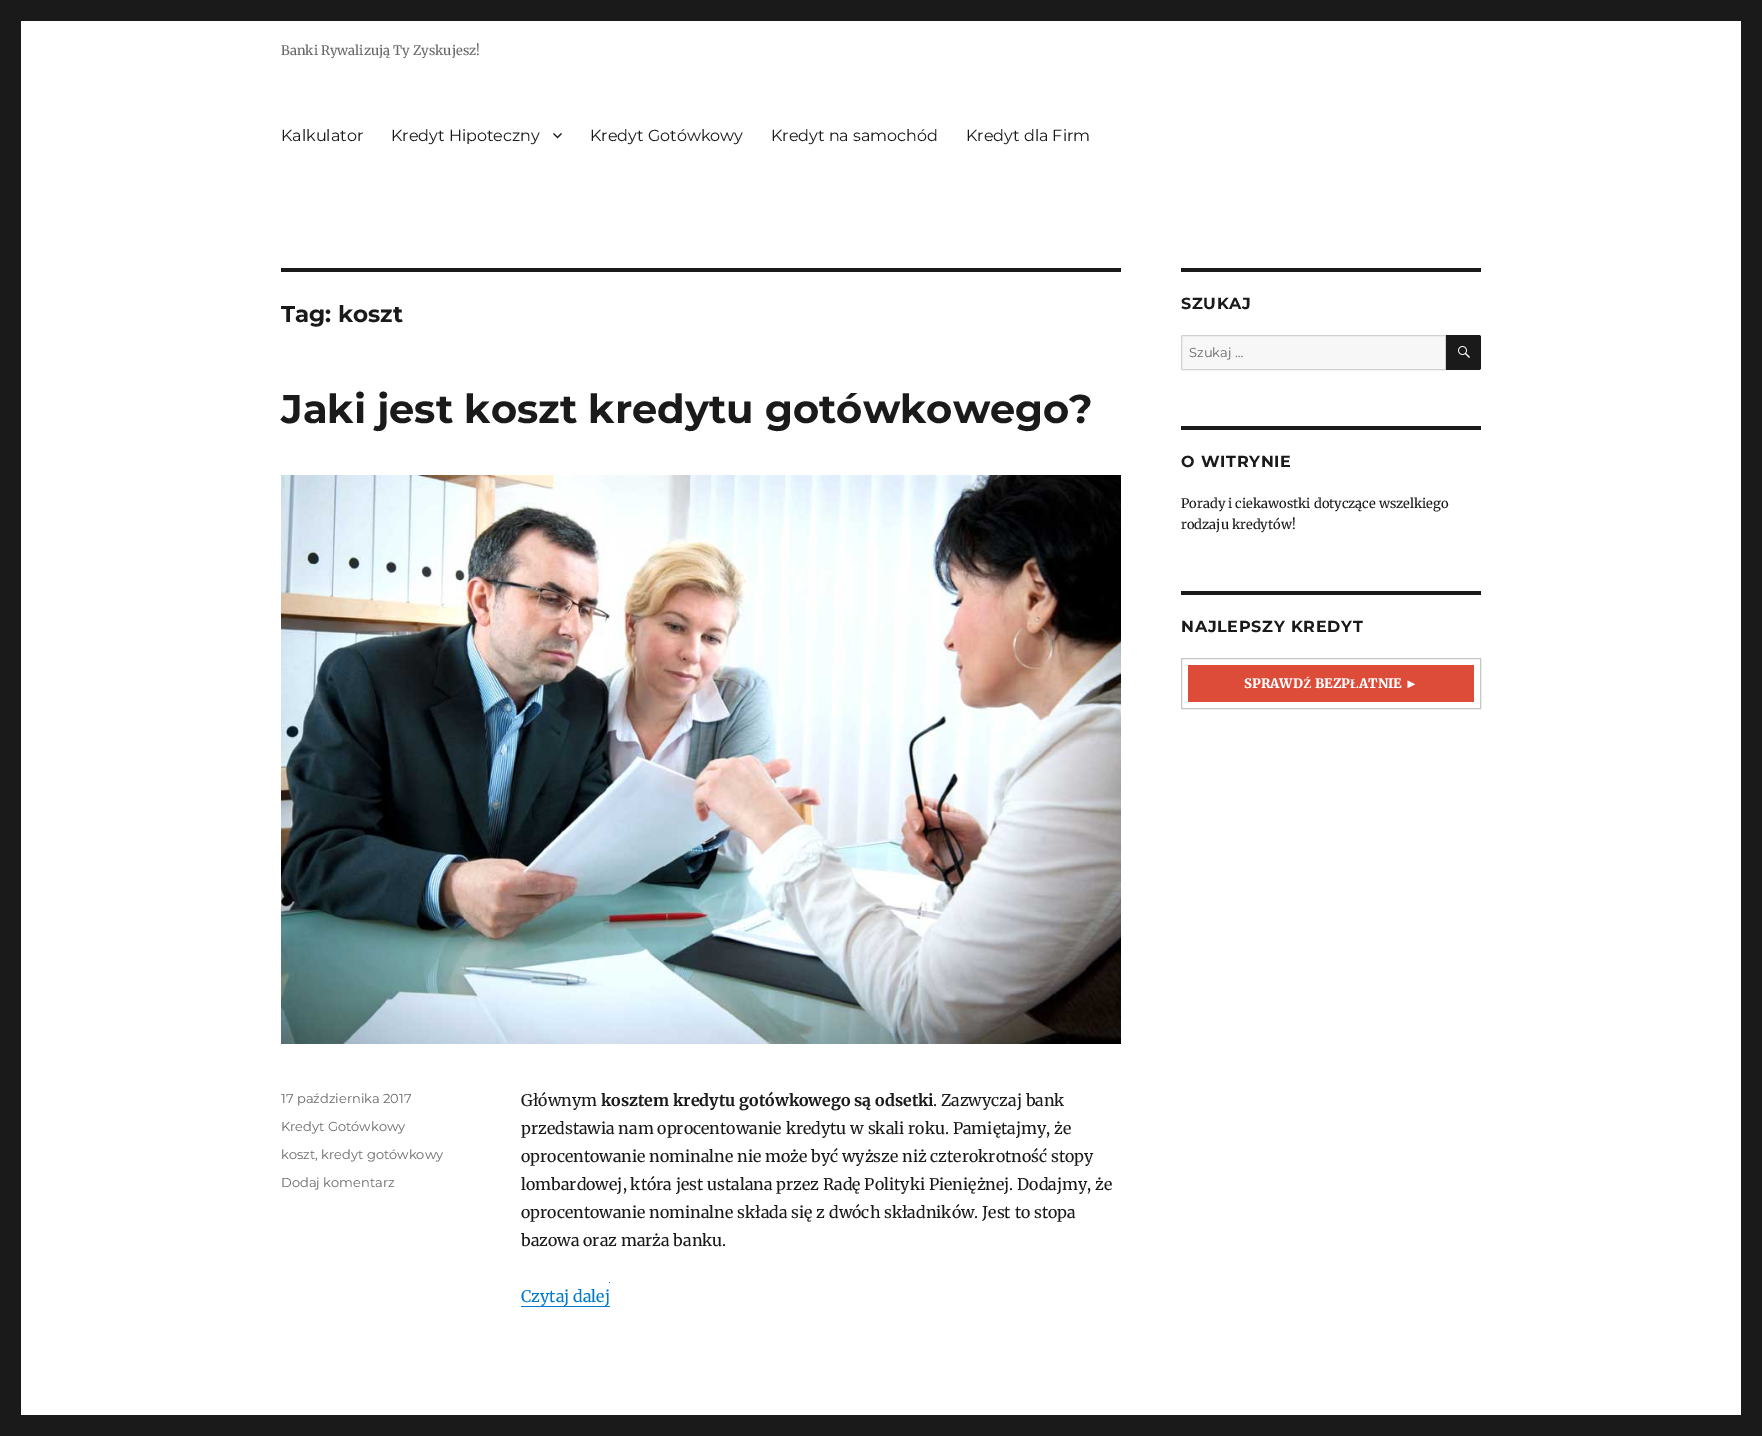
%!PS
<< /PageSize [1762 1436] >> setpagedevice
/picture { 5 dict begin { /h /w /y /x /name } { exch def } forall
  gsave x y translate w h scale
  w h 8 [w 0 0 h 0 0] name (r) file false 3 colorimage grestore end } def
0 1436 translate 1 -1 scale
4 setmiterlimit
0.102 setgray
0 0 1762 1436 rectfill
1 setgray
21 21 1720 1394 rectfill
gsave
281 2 397 56 rectclip
/Merriweather-Regular [13 0 0 -13 0 0] selectfont
0.408 setgray
281 55 moveto (Banki Rywalizują Ty Zyskujesz!) show
grestore
/Montserrat-Regular [16 0 0 -16 0 0] selectfont
0.102 setgray
281 141 moveto (Kalkulator) show
391 141 moveto (Kredyt Hipoteczny) show
(img1.rgb) 553 133 9 6 picture
590 141 moveto (Kredyt Gotówkowy) show
771 141 moveto (Kredyt na samochód) show
966 141 moveto (Kredyt dla Firm) show
281 268 840 4 rectfill
/Montserrat-Bold [23 0 0 -23 0 0] selectfont
281 322 moveto (Tag: koszt) show
/Montserrat-Bold [40 0 0 -40 0 0] selectfont
281 423 moveto (Jaki jest koszt kredytu gotówkowego?) show
(img2.rgb) 281 475 840 569 picture
/Montserrat-Regular [13 0 0 -13 0 0] selectfont
0.408 setgray
281 1103 moveto (17 października 2017) show
281 1131 moveto (Kredyt Gotówkowy) show
281 1159 moveto (koszt, kredyt gotówkowy) show
281 1187 moveto (Dodaj komentarz) show
/Merriweather-Regular [16 0 0 -16 0 0] selectfont
0.102 setgray
521 1106 moveto (Głównym) show
/Merriweather-Bold [16 0 0 -16 0 0] selectfont
601 1106 moveto (kosztem kredytu gotówkowego są odsetki) show
/Merriweather-Regular [16 0 0 -16 0 0] selectfont
933 1106 moveto (. Zazwyczaj bank) show
521 1134 moveto (przedstawia nam oprocentowanie kredytu w skali roku. Pamiętajmy, że) show
521 1162 moveto (oprocentowanie nominalne nie może być wyższe niż czterokrotność stopy) show
521 1190 moveto (lombardowej, która jest ustalana przez Radę Polityki Pieniężnej. Dodajmy, że) show
521 1218 moveto (oprocentowanie nominalne składa się z dwóch składników. Jest to stopa) show
521 1246 moveto (bazowa oraz marża banku.) show
0 0.478 0.8 setrgbcolor
521 1302 moveto (Czytaj dalej) show
521 1306 89 1 rectfill
609 1282 1 1 rectfill
0.102 setgray
1181 268 300 4 rectfill
/Montserrat-Bold [16 0 0 -16 0 0] selectfont
1181 309 moveto 0.75 0 (SZUKAJ) ashow
0.969 setgray
newpath 1183 335.5 moveto 1445.5 335.5 lineto 1445.5 369.5 lineto 1183 369.5 lineto 1182 369.5 1181.5 369 1181.5 368 curveto 1181.5 337 lineto 1181.5 336 1182 335.5 1183 335.5 curveto closepath gsave fill grestore
0.82 setgray
stroke
/Montserrat-Regular [13 0 0 -13 0 0] selectfont
0.408 setgray
1189 357 moveto (Szukaj …) show
0.102 setgray
newpath 1446 335 moveto 1479 335 lineto 1480 335 1481 336 1481 337 curveto 1481 368 lineto 1481 369 1480 370 1479 370 curveto 1446 370 lineto closepath fill
(img3.rgb) 1458 346 12 12 picture
1181 426 300 4 rectfill
/Montserrat-Bold [16 0 0 -16 0 0] selectfont
1181 467 moveto 0.75 0 (O WITRYNIE) ashow
/Merriweather-Regular [13 0 0 -13 0 0] selectfont
1181 508 moveto (Porady i ciekawostki dotyczące wszelkiego) show
1181 529 moveto (rodzaju kredytów!) show
1181 591 300 4 rectfill
/Montserrat-Bold [16 0 0 -16 0 0] selectfont
1181 632 moveto 0.75 0 (NAJLEPSZY KREDYT) ashow
0.776 setgray
1181.5 658.5 299 50 rectstroke
0.867 0.294 0.224 setrgbcolor
1188 665 286 37 rectfill
/Merriweather-Black [13 0 0 -13 0 0] selectfont
1 setgray
1244 688 moveto (SPRAWD) show
/LiberationSerif-Bold [13 0 0 -13 0 0] selectfont
1303 688 moveto (Ź) show
/Merriweather-Black [13 0 0 -13 0 0] selectfont
1315 688 moveto (BEZP) show
/LiberationSerif-Bold [13 0 0 -13 0 0] selectfont
1350 688 moveto (Ł) show
/Merriweather-Black [13 0 0 -13 0 0] selectfont
1359 688 moveto (ATNIE) show
/LiberationSerif-Bold [13 0 0 -13 0 0] selectfont
1405 688 moveto (►) show
showpage
